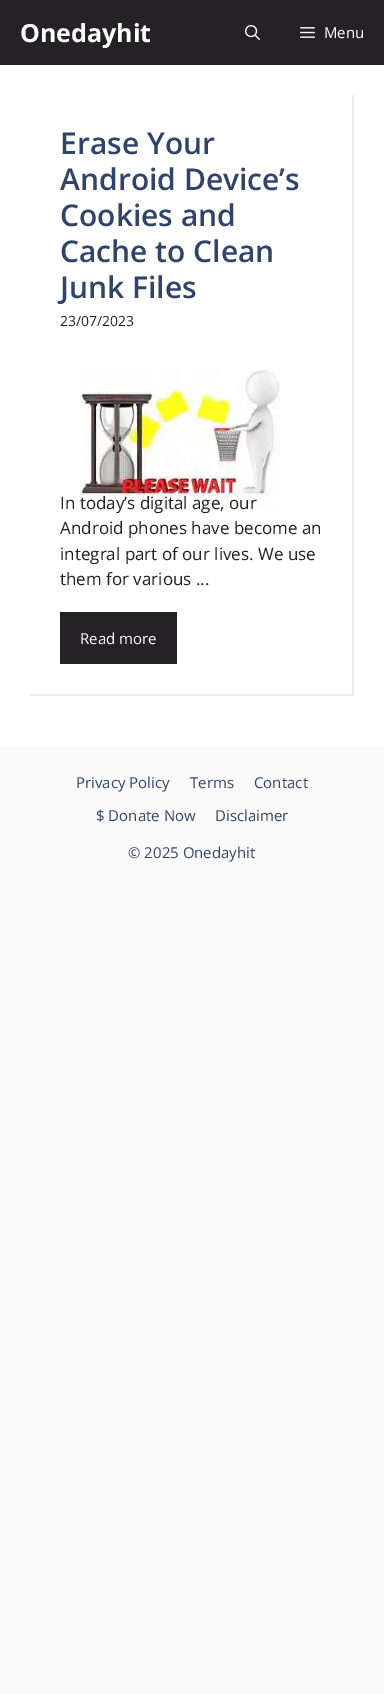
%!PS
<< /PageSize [384 1694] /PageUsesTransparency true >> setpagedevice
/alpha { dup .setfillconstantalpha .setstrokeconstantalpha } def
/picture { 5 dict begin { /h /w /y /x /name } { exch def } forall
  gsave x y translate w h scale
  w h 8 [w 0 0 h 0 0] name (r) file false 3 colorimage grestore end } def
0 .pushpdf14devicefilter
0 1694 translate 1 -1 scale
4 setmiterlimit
0.98 setgray
0 0 384 1694 rectfill
0.141 0.133 0.149 setrgbcolor
0 0 384 65 rectfill
/OpenSans-Bold [25 0 0 -25 0 0] selectfont
1 setgray
20 42 moveto (Onedayhit) show
(img1.rgb) 245 25 15 15 picture
(img2.rgb) 300 27 15 11 picture
/OpenSans-Regular [15 0 0 -15 0 0] selectfont
324 38 moveto (Menu) show
0 65 384 681 rectfill
0.929 setgray
newpath 354 95 moveto 354 696 lineto 352 694 lineto 352 95 lineto closepath fill
0.07 alpha
0 setgray
newpath 354 696 moveto 30 696 lineto 30 694 lineto 352 694 lineto closepath fill
/OpenSans-SemiBold [30 0 0 -30 0 0] selectfont
1 alpha
0.184 0.267 0.408 setrgbcolor
60 154 moveto (Erase Your) show
60 190 moveto (Android Device’s) show
60 226 moveto (Cookies and) show
60 262 moveto (Cache to Clean) show
60 298 moveto (Junk Files) show
/OpenSans-Regular [14 0 0 -14 0 0] selectfont
0.129 setgray
60 326 moveto (23/07/2023) show
(img3.rgb) 79 368 202 141 picture
/OpenSans-Regular [17 0 0 -17 0 0] selectfont
60 509 moveto (In today’s digital age, our) show
60 534 moveto (Android phones have become an) show
60 560 moveto (integral part of our lives. We use) show
60 585 moveto (them for various ...) show
0.141 0.133 0.149 setrgbcolor
60 612 117 52 rectfill
/OpenSans-Regular [15 0 0 -15 0 0] selectfont
1 setgray
80 644 moveto (Read more) show
0.184 0.267 0.408 setrgbcolor
76 788 moveto (Privacy Policy) show
190 788 moveto (Terms) show
254 788 moveto (Contact) show
96 821 moveto ($ Donate Now) show
215 821 moveto (Disclaimer) show
128 858 moveto (© 2025 Onedayhit) show
.poppdf14devicefilter showpage
